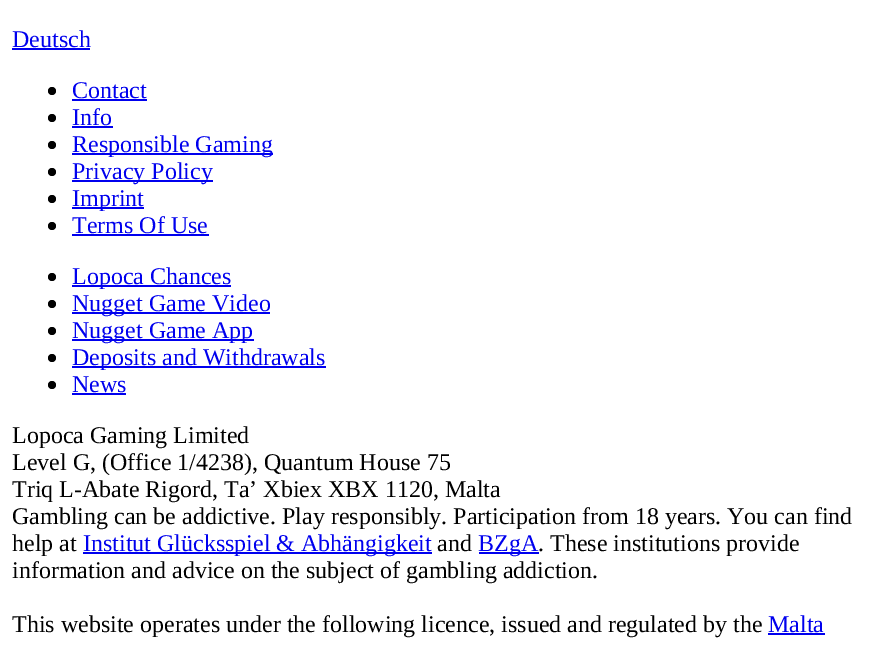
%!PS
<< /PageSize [884 650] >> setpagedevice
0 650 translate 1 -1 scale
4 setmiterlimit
1 setgray
0 0 884 650 rectfill
/LiberationSerif-Regular [24 0 0 -24 0 0] selectfont
0 0 0.933 setrgbcolor
12 47 moveto (Deutsch) show
12 48 78 2 rectfill
0 setgray
newpath 52 91 4 0 360 arc closepath fill
0 0 0.933 setrgbcolor
72 98 moveto (Contact) show
72 99 75 2 rectfill
0 setgray
newpath 52 118 4 0 360 arc closepath fill
0 0 0.933 setrgbcolor
72 125 moveto (Info) show
72 126 41 2 rectfill
0 setgray
newpath 52 145 4 0 360 arc closepath fill
0 0 0.933 setrgbcolor
72 153 201 2 rectfill
72 152 moveto (Responsible Gaming) show
0 setgray
newpath 52 172 4 0 360 arc closepath fill
0 0 0.933 setrgbcolor
72 180 141 2 rectfill
72 179 moveto (Privacy Policy) show
0 setgray
newpath 52 199 4 0 360 arc closepath fill
0 0 0.933 setrgbcolor
72 207 72 2 rectfill
72 206 moveto (Imprint) show
0 setgray
newpath 52 226 4 0 360 arc closepath fill
0 0 0.933 setrgbcolor
72 233 moveto (Terms Of Use) show
72 234 137 2 rectfill
0 setgray
newpath 52 277 4 0 360 arc closepath fill
0 0 0.933 setrgbcolor
72 285 159 2 rectfill
72 284 moveto (Lopoca Chances) show
0 setgray
newpath 52 304 4 0 360 arc closepath fill
0 0 0.933 setrgbcolor
72 312 198 2 rectfill
72 311 moveto (Nugget Game Video) show
0 setgray
newpath 52 331 4 0 360 arc closepath fill
0 0 0.933 setrgbcolor
72 339 182 2 rectfill
72 338 moveto (Nugget Game App) show
0 setgray
newpath 52 358 4 0 360 arc closepath fill
0 0 0.933 setrgbcolor
72 366 254 2 rectfill
72 365 moveto (Deposits and Withdrawals) show
0 setgray
newpath 52 385 4 0 360 arc closepath fill
0 0 0.933 setrgbcolor
72 392 moveto (News) show
72 393 54 2 rectfill
0 setgray
12 443 moveto (Lopoca Gaming Limited) show
12 470 moveto (Level G, \(Office 1/4238\), Quantum House 75) show
12 497 moveto (Triq L-Abate Rigord, Ta’ Xbiex XBX 1120, Malta) show
12 524 moveto (Gambling can be addictive. Play responsibly. Participation from 18 years. You can find) show
12 551 moveto (help at) show
0 0 0.933 setrgbcolor
83 552 349 2 rectfill
83 551 moveto (Institut Glücksspiel & Abhängigkeit) show
0 setgray
437 551 moveto (and) show
0 0 0.933 setrgbcolor
479 552 60 2 rectfill
478 551 moveto (BZgA) show
0 setgray
538 551 moveto (. These institutions provide) show
12 578 moveto (information and advice on the subject of gambling addiction.) show
12 632 moveto (This website operates under the following licence, issued and regulated by the) show
0 0 0.933 setrgbcolor
768 632 moveto (Malta) show
768 633 57 2 rectfill
showpage
